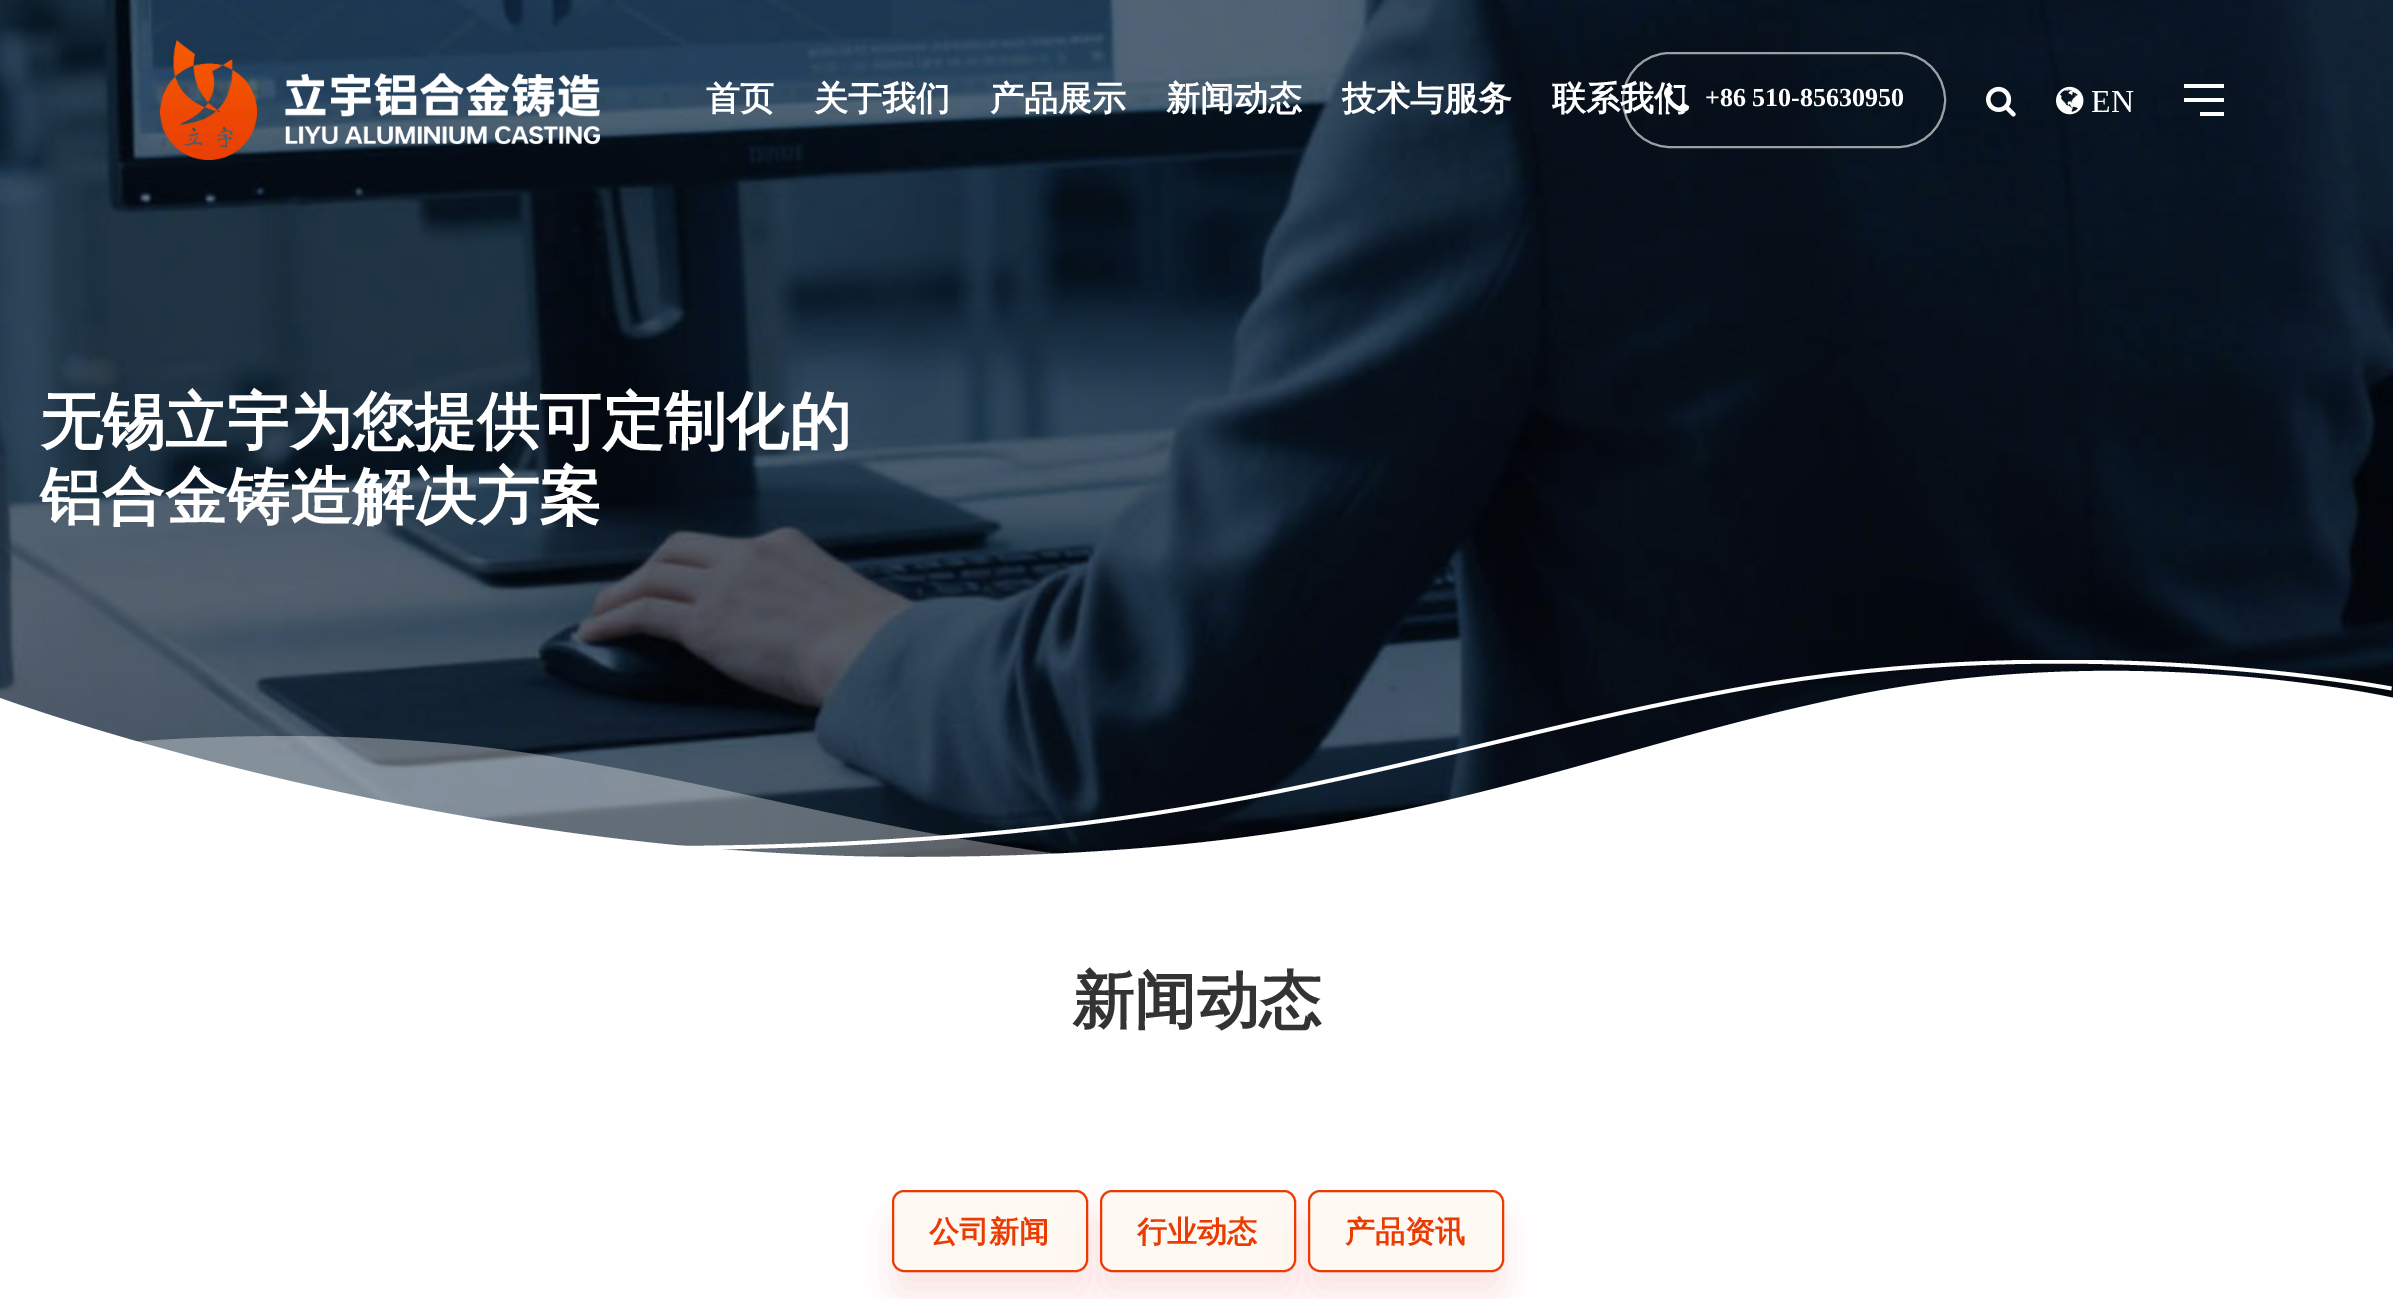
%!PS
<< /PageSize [2393 1299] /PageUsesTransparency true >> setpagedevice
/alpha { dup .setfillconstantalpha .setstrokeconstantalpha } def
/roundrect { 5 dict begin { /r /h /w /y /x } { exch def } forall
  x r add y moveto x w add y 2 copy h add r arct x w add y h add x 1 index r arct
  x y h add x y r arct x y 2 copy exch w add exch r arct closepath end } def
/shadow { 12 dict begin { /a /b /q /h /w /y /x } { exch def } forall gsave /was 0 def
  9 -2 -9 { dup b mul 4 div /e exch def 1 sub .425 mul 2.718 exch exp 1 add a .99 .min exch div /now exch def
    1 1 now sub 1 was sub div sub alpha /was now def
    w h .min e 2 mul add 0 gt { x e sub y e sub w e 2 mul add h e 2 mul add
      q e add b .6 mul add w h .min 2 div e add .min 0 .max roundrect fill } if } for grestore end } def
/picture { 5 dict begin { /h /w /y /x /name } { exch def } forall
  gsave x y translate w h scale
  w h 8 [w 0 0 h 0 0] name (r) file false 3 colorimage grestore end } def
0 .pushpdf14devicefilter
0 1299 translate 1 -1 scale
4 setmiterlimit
1 setgray
0 0 2393 1299 rectfill
(img5.rgb) 0 0 2393 857 picture
(img1.rgb) 160 40 440 120 picture
/WenQuanYiZenHei-Bold [34 0 0 -34 0 0] selectfont
706 110 moveto (首页) show
814 110 moveto (关于我们) show
990 110 moveto (产品展示) show
1166 110 moveto (新闻动态) show
1342 110 moveto (技术与服务) show
1552 110 moveto (联系我们) show
0.6 alpha
2 setlinewidth
1623 53 322 94 47 roundrect stroke
1 alpha
(img2.rgb) 1664 87 26 25 picture
/LiberationSerif-Bold [26 0 0 -26 0 0] selectfont
1705 106 moveto (+86 510-85630950) show
(img3.rgb) 1986 86 30 31 picture
(img4.rgb) 2056 86 28 29 picture
/LiberationSerif-Regular [32 0 0 -32 0 0] selectfont
2091 112 moveto (EN) show
2184 98 40 4 rectfill
2184 84 40 4 rectfill
2200 112 24 4 rectfill
/WenQuanYiZenHei-Bold [62.4 0 0 -62.4 0 0] selectfont
40 443 moveto (无锡立宇为您提供可定制化的) show
40 518 moveto (铝合金铸造解决方案) show
newpath 0 698 moveto 0 698 431 857 910 857 curveto 1389 857 1556 758 1841 698 curveto 2126 637 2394 698 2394 698 curveto 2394 960 lineto 0 960 lineto closepath eofill
gsave
0 660 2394 300 rectclip
3.8 setlinewidth
newpath 2.5 787 moveto 185.5 819.5 412 848 649 848 curveto 1211 848 1407.5 749 1742 688.5 curveto 2076.5 628 2391.5 688.5 2391.5 688.5 curveto stroke
grestore
0.34 alpha
newpath 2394 757 moveto 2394 757 1963 880 1484 880 curveto 1005 880 838 804 553 757 curveto 268 710 0 757 0 757 curveto 0 960 lineto 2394 960 lineto closepath eofill
1 alpha
0.2 setgray
1072 1022 moveto (新闻动态) show
0.831 0 0 setrgbcolor
892 1214 196 82 12 18 0.1 shadow
1 0.976 0.953 setrgbcolor
893 1191 194 80 11 roundrect gsave fill grestore
0.918 0.231 0.008 setrgbcolor
stroke
/WenQuanYiZenHei-Bold [30 0 0 -30 0 0] selectfont
929 1242 moveto (公司新闻) show
0.831 0 0 setrgbcolor
1100 1214 196 82 12 18 0.1 shadow
1 0.976 0.953 setrgbcolor
1101 1191 194 80 11 roundrect gsave fill grestore
0.918 0.231 0.008 setrgbcolor
stroke
1137 1242 moveto (行业动态) show
0.831 0 0 setrgbcolor
1308 1214 196 82 12 18 0.1 shadow
1 0.976 0.953 setrgbcolor
1309 1191 194 80 11 roundrect gsave fill grestore
0.918 0.231 0.008 setrgbcolor
stroke
1345 1242 moveto (产品资讯) show
.poppdf14devicefilter showpage
